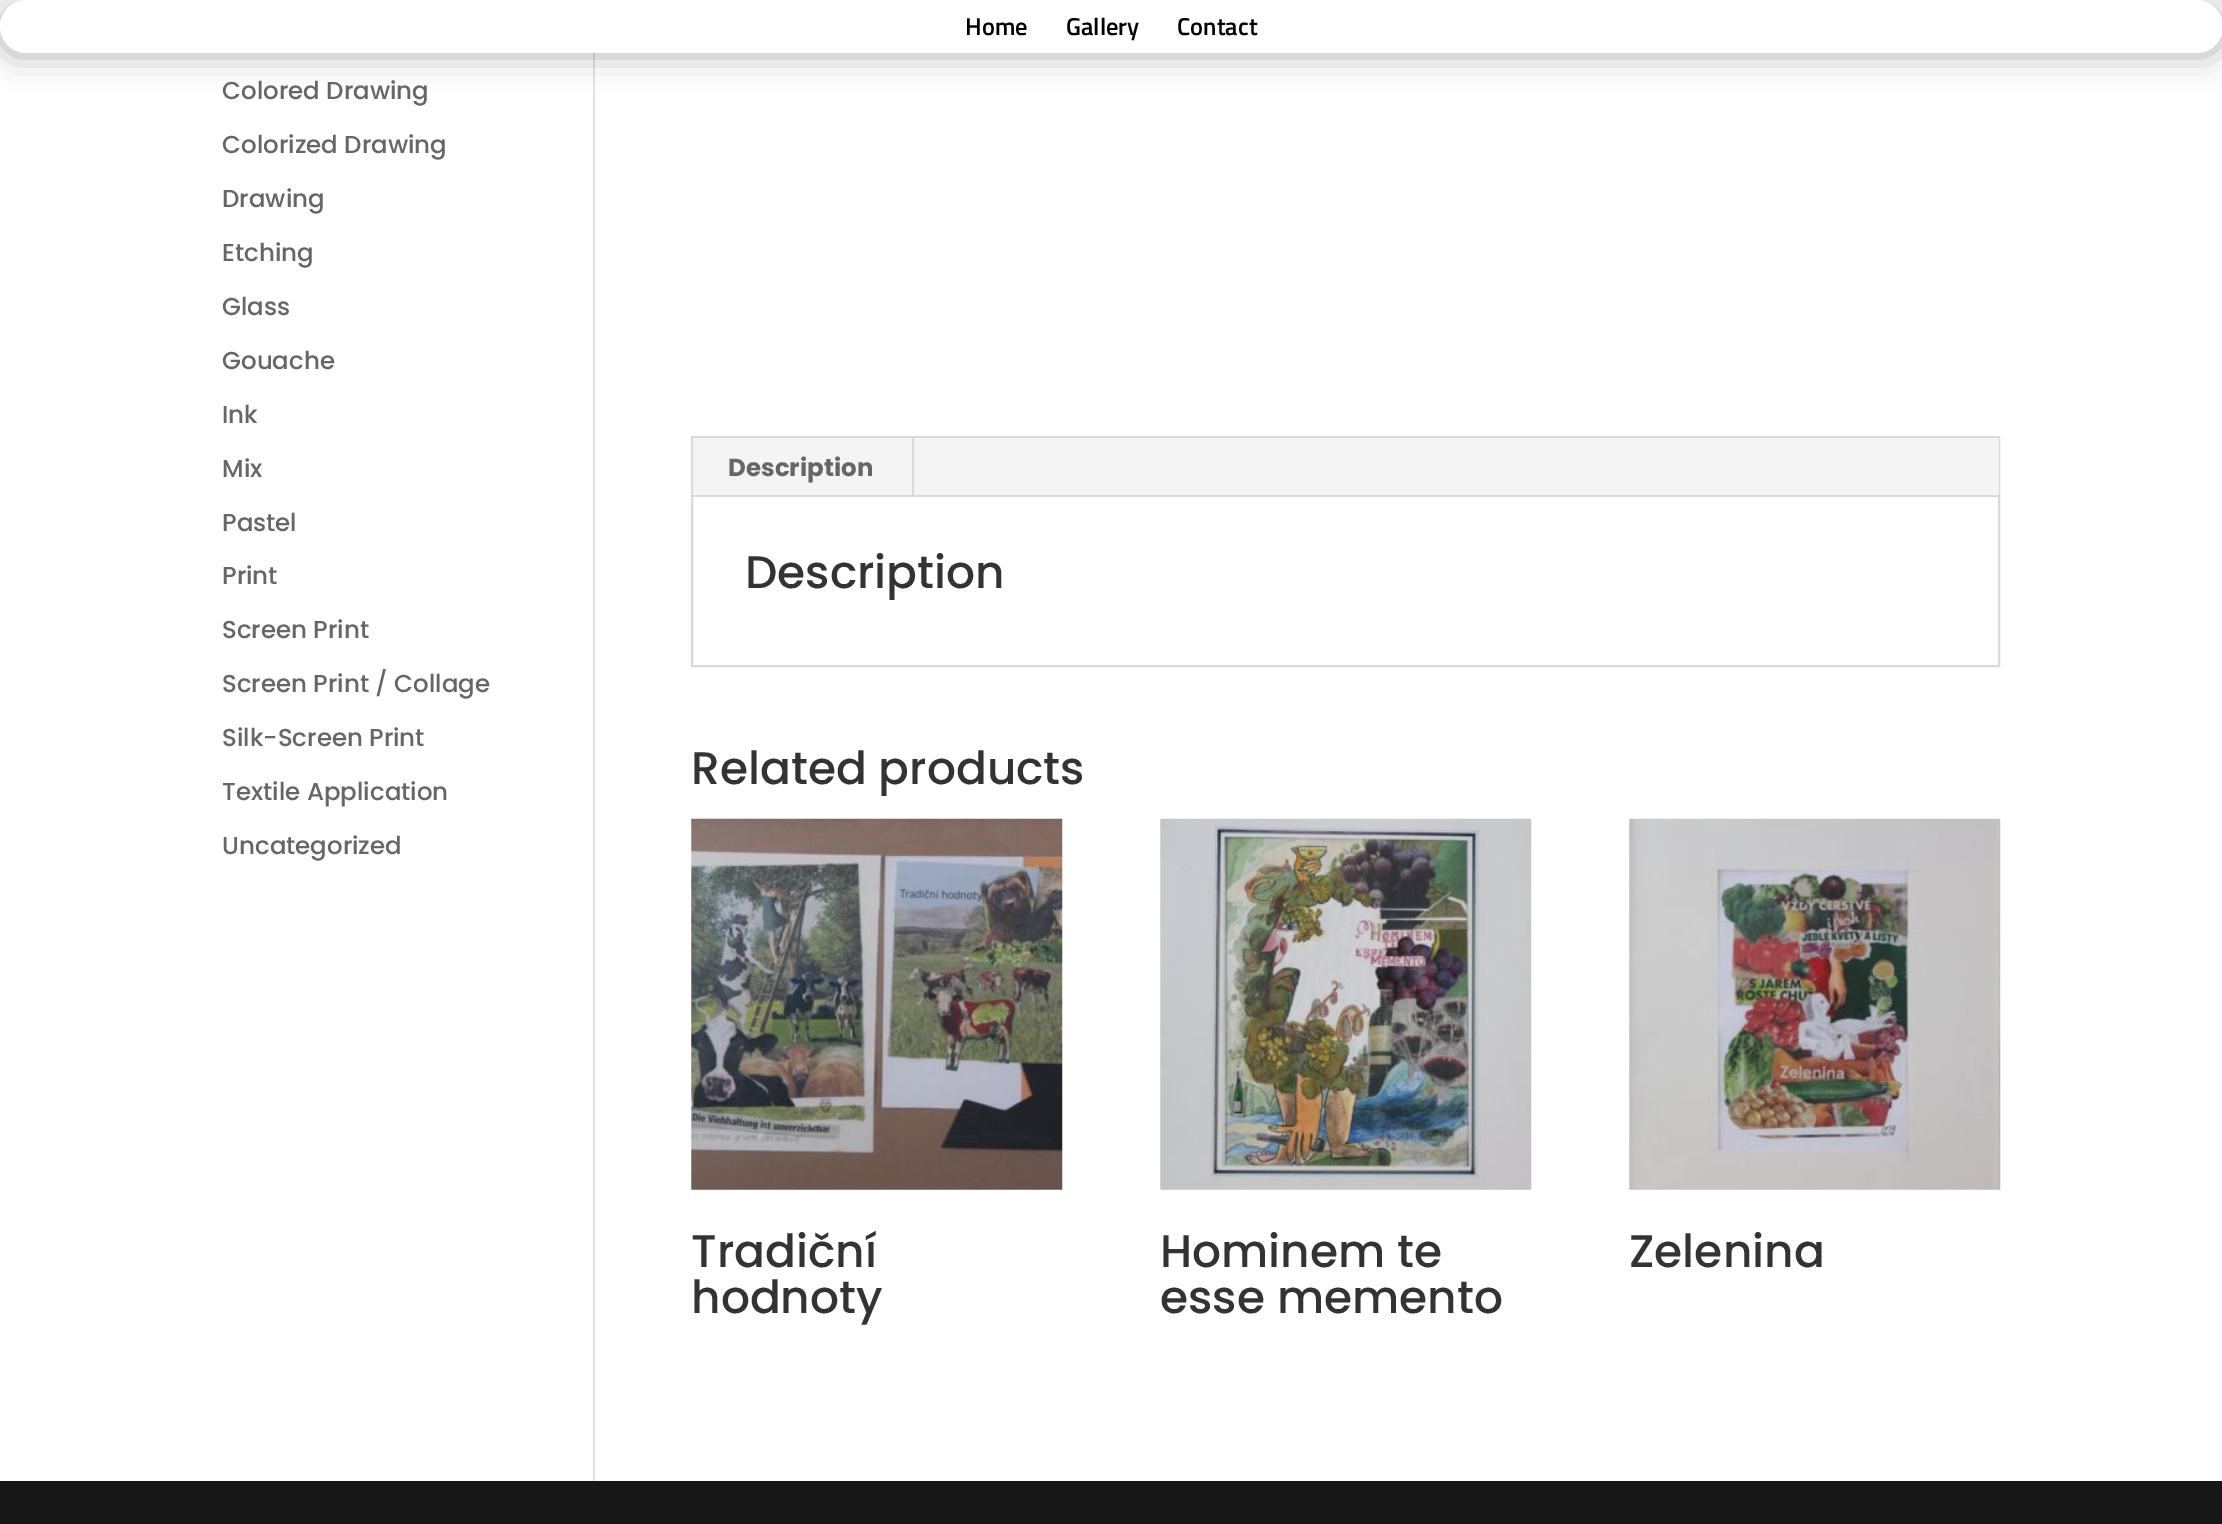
%!PS
<< /PageSize [2222 1524] /PageUsesTransparency true >> setpagedevice
/alpha { dup .setfillconstantalpha .setstrokeconstantalpha } def
/roundrect { 5 dict begin { /r /h /w /y /x } { exch def } forall
  x r add y moveto x w add y 2 copy h add r arct x w add y h add x 1 index r arct
  x y h add x y r arct x y 2 copy exch w add exch r arct closepath end } def
/shadow { 12 dict begin { /a /b /q /h /w /y /x } { exch def } forall gsave /was 0 def
  9 -2 -9 { dup b mul 4 div /e exch def 1 sub .425 mul 2.718 exch exp 1 add a .99 .min exch div /now exch def
    1 1 now sub 1 was sub div sub alpha /was now def
    w h .min e 2 mul add 0 gt { x e sub y e sub w e 2 mul add h e 2 mul add
      q e add b .6 mul add w h .min 2 div e add .min 0 .max roundrect fill } if } for grestore end } def
/picture { 5 dict begin { /h /w /y /x /name } { exch def } forall
  gsave x y translate w h scale
  w h 8 [w 0 0 h 0 0] name (r) file false 3 colorimage grestore end } def
0 .pushpdf14devicefilter
0 1524 translate 1 -1 scale
4 setmiterlimit
1 setgray
0 0 2222 1524 rectfill
0.886 setgray
593 53 2 1428 rectfill
0 setgray
0 4 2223 52 26 16 0.3 shadow
1 setgray
0 0 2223 53 26.5 roundrect fill
/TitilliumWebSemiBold-SemiBold [24.5 0 0 -24.5 0 0] selectfont
0 setgray
965 35 moveto (Home) show
1066 35 moveto (Gallery) show
1177 35 moveto (Contact) show
/Poppins-Medium [24.5 0 0 -24.5 0 0] selectfont
0.4 setgray
222 99 moveto (Colored Drawing) show
222 153 moveto (Colorized Drawing) show
222 207 moveto (Drawing) show
222 261 moveto (Etching) show
222 315 moveto (Glass) show
222 369 moveto (Gouache) show
222 423 moveto (Ink) show
222 477 moveto (Mix) show
222 531 moveto (Pastel) show
222 584 moveto (Print) show
222 638 moveto (Screen Print) show
222 692 moveto (Screen Print / Collage) show
222 746 moveto (Silk-Screen Print) show
222 800 moveto (Textile Application) show
222 854 moveto (Uncategorized) show
0.851 setgray
2 setlinewidth
692 437 1307 229 rectstroke
0.957 setgray
693 438 1306 57 rectfill
0.851 setgray
912 438 2 59 rectfill
/Poppins-Bold [24.5 0 0 -24.5 0 0] selectfont
0.4 setgray
728 476 moveto (Description) show
0.851 setgray
693 495 1306 2 rectfill
/Poppins-Medium [45.5 0 0 -45.5 0 0] selectfont
0.2 setgray
745 588 moveto (Description) show
691 784 moveto (Related products) show
(img1.rgb) 691 818 372 372 picture
691 1267 moveto (Tradiční) show
691 1313 moveto (hodnoty) show
(img2.rgb) 1160 818 372 372 picture
1160 1267 moveto (Hominem te) show
1160 1313 moveto (esse memento) show
(img3.rgb) 1629 818 372 372 picture
1629 1267 moveto (Zelenina) show
0.09 setgray
0 1481 2222 43 rectfill
.poppdf14devicefilter showpage
